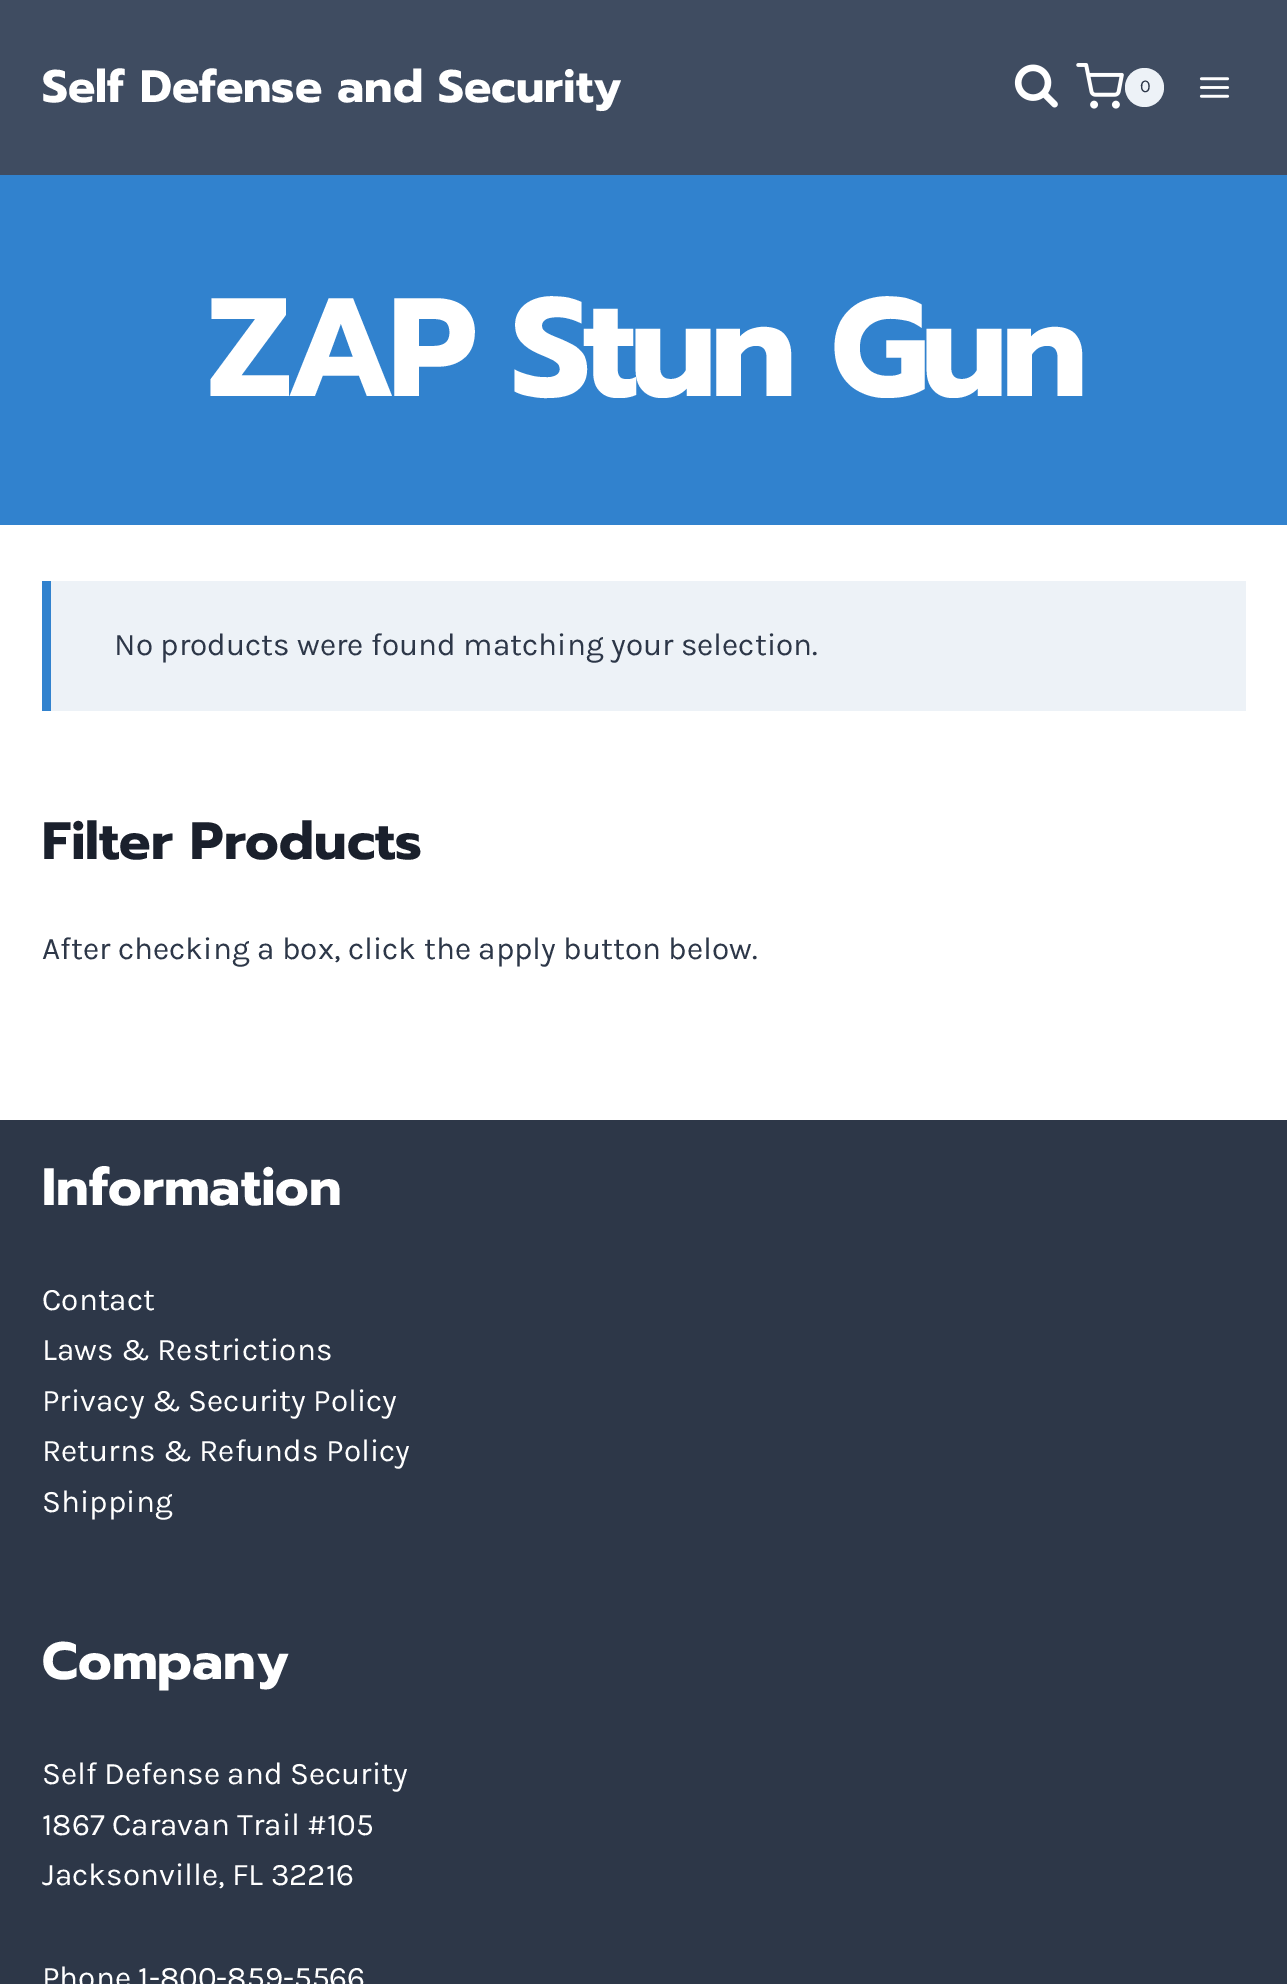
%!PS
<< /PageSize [1287 1984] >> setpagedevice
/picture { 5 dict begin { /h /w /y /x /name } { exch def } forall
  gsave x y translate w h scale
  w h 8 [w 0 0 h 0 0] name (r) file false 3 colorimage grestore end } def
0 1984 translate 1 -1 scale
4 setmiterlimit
1 setgray
0 0 1287 1984 rectfill
0.247 0.298 0.38 setrgbcolor
0 0 1287 175 rectfill
/Prompt-Bold [45.5 0 0 -45.5 0 0] selectfont
1 setgray
42 102 moveto (Self Defense and Security) show
(img1.rgb) 1014 64 44 44 picture
(img2.rgb) 1076 63 48 46 picture
0.929 0.949 0.969 setrgbcolor
newpath 1144.5 87.5 19.5 0 360 arc closepath fill
/Karla-Regular [18 0 0 -18 0 0] selectfont
0.176 0.216 0.282 setrgbcolor
1140 92 moveto (0) show
(img3.rgb) 1199 77 31 21 picture
0.192 0.51 0.808 setrgbcolor
0 175 1287 350 rectfill
/Prompt-Bold [140 0 0 -140 0 0] selectfont
1 setgray
207 396 moveto -7 0 (ZAP Stun Gun) ashow
0.929 0.949 0.969 setrgbcolor
51 581 1195 130 rectfill
0.192 0.51 0.808 setrgbcolor
42 581 9 130 rectfill
/Karla-Regular [31.5 0 0 -31.5 0 0] selectfont
0.176 0.216 0.282 setrgbcolor
114 655 moveto (No products were found matching your selection.) show
/Prompt-Bold [52.5 0 0 -52.5 0 0] selectfont
0.102 0.125 0.173 setrgbcolor
42 859 moveto (Filter Products) show
/Karla-Regular [31.5 0 0 -31.5 0 0] selectfont
0.176 0.216 0.282 setrgbcolor
42 959 moveto (After checking a box, click the apply button below.) show
0 1120 1287 864 rectfill
/Prompt-Bold [52.5 0 0 -52.5 0 0] selectfont
1 setgray
42 1205 moveto (Information) show
/Karla-Regular [31.5 0 0 -31.5 0 0] selectfont
42 1310 moveto (Contact) show
42 1360 moveto (Laws & Restrictions) show
42 1411 moveto (Privacy & Security Policy) show
42 1461 moveto (Returns & Refunds Policy) show
42 1512 moveto (Shipping) show
/Prompt-Bold [52.5 0 0 -52.5 0 0] selectfont
42 1679 moveto (Company) show
/Karla-Regular [31.5 0 0 -31.5 0 0] selectfont
42 1784 moveto (Self Defense and Security) show
42 1835 moveto (1867 Caravan Trail #105) show
42 1885 moveto (Jacksonville, FL 32216) show
42 1988 moveto (Phone 1-800-859-5566) show
showpage
